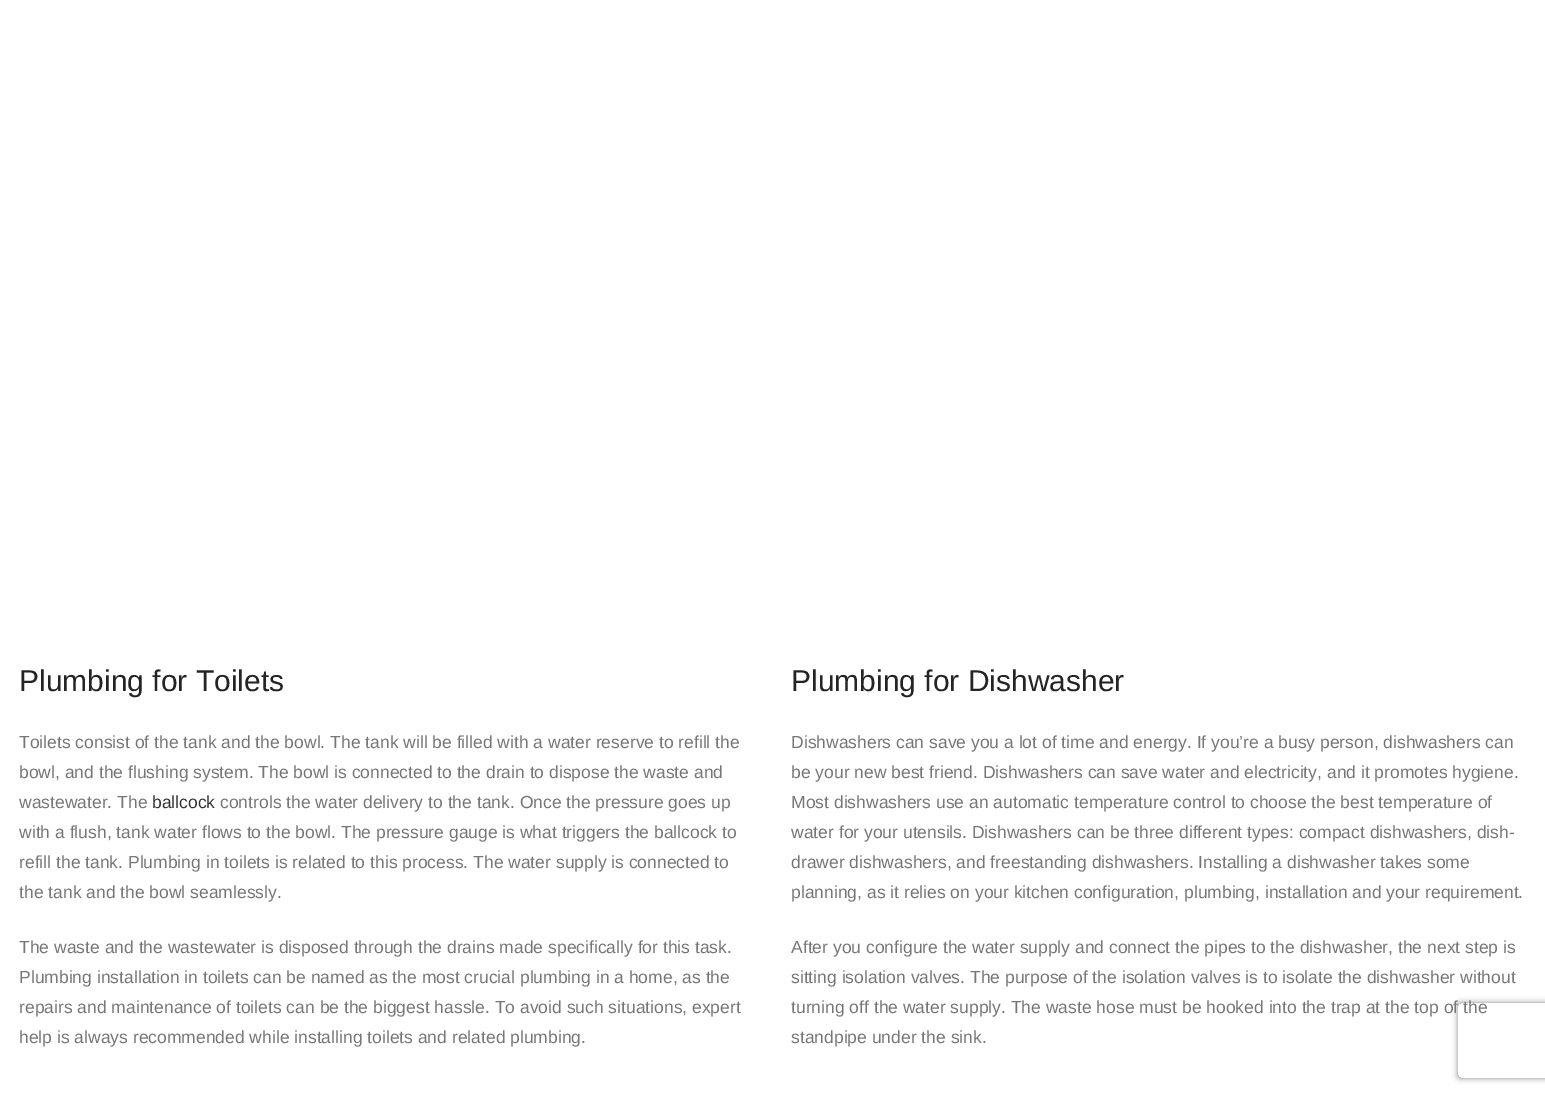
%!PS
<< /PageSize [1545 1095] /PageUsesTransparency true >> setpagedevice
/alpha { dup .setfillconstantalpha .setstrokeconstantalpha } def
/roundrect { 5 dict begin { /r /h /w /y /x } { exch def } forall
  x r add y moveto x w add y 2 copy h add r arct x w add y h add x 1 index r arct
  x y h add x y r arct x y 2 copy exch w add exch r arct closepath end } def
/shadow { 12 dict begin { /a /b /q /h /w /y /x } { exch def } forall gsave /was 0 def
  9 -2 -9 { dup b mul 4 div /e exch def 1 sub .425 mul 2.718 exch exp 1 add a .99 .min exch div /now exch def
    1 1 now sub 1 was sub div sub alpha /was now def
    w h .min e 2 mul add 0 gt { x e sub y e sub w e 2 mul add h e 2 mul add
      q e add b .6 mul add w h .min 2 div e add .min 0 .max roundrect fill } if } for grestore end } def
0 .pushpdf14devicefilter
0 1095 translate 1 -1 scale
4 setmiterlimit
1 setgray
0 0 1545 1095 rectfill
/LiberationSans-Regular [30 0 0 -30 0 0] selectfont
0.141 setgray
19 691 moveto (Plumbing for Toilets) show
/LiberationSans-Regular [17.5 0 0 -17.5 0 0] selectfont
0.463 setgray
19 748 moveto (Toilets consist of the tank and the bowl. The tank will be filled with a water reserve to refill the) show
19 778 moveto (bowl, and the flushing system. The bowl is connected to the drain to dispose the waste and) show
19 808 moveto (wastewater. The) show
0.2 setgray
152 808 moveto (ballcock) show
0.463 setgray
220 808 moveto (controls the water delivery to the tank. Once the pressure goes up) show
19 838 moveto (with a flush, tank water flows to the bowl. The pressure gauge is what triggers the ballcock to) show
19 868 moveto (refill the tank. Plumbing in toilets is related to this process. The water supply is connected to) show
19 898 moveto (the tank and the bowl seamlessly.) show
19 953 moveto (The waste and the wastewater is disposed through the drains made specifically for this task.) show
19 983 moveto (Plumbing installation in toilets can be named as the most crucial plumbing in a home, as the) show
19 1013 moveto (repairs and maintenance of toilets can be the biggest hassle. To avoid such situations, expert) show
19 1043 moveto (help is always recommended while installing toilets and related plumbing.) show
/LiberationSans-Regular [30 0 0 -30 0 0] selectfont
0.141 setgray
791 691 moveto (Plumbing for Dishwasher) show
/LiberationSans-Regular [17.5 0 0 -17.5 0 0] selectfont
0.463 setgray
791 748 moveto (Dishwashers can save you a lot of time and energy. If you’re a busy person, dishwashers can) show
791 778 moveto (be your new best friend. Dishwashers can save water and electricity, and it promotes hygiene.) show
791 808 moveto (Most dishwashers use an automatic temperature control to choose the best temperature of) show
791 838 moveto (water for your utensils. Dishwashers can be three different types: compact dishwashers, dish-) show
791 868 moveto (drawer dishwashers, and freestanding dishwashers. Installing a dishwasher takes some) show
791 898 moveto (planning, as it relies on your kitchen configuration, plumbing, installation and your requirement.) show
791 953 moveto (After you configure the water supply and connect the pipes to the dishwasher, the next step is) show
791 983 moveto (sitting isolation valves. The purpose of the isolation valves is to isolate the dishwasher without) show
gsave
newpath 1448 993 moveto 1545 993 lineto 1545 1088 lineto 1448 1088 lineto closepath 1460.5 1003 moveto 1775.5 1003 lineto 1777 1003 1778 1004 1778 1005.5 curveto 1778 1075.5 lineto 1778 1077 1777 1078 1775.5 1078 curveto 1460.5 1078 lineto 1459 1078 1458 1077 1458 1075.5 curveto 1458 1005.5 lineto 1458 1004 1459 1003 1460.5 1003 curveto closepath eoclip newpath
0.502 setgray
1458 1003 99 75 2.5 3 1 shadow
grestore
791 1013 moveto (turning off the water supply. The waste hose must be hooked into the trap at the top of the) show
791 1043 moveto (standpipe under the sink.) show
.poppdf14devicefilter showpage
